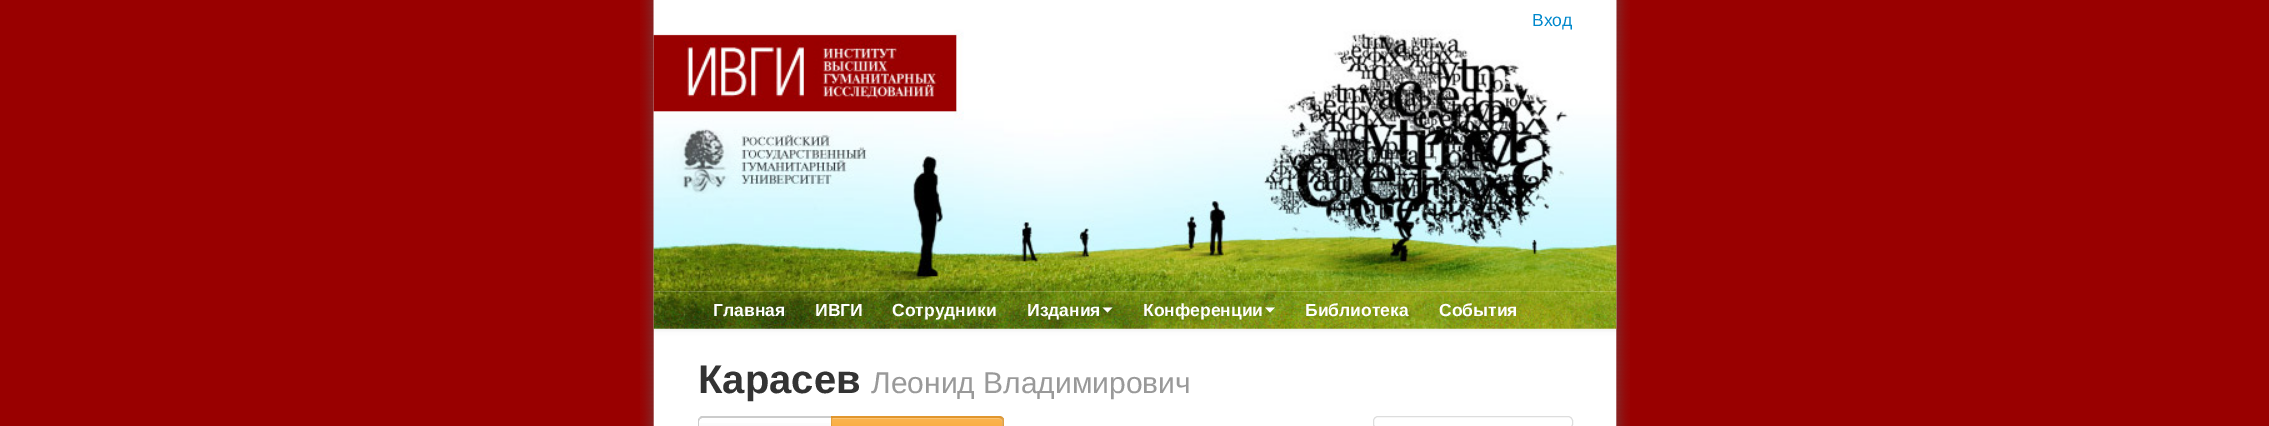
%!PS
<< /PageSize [2269 426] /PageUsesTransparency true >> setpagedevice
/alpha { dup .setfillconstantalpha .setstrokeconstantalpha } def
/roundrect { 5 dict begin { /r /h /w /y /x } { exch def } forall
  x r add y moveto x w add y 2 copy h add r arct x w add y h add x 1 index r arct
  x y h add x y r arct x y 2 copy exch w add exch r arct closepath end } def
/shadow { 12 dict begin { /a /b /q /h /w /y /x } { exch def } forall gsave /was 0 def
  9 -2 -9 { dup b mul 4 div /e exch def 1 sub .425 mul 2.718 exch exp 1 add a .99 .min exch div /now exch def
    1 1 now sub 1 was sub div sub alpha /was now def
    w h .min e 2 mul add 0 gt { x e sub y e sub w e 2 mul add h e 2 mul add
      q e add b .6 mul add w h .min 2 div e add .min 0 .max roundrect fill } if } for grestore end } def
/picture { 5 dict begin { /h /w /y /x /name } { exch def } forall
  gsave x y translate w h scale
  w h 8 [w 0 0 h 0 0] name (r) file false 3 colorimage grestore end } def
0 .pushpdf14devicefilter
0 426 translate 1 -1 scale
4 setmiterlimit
0.6 0 0 setrgbcolor
0 0 2269 426 rectfill
(img1.rgb) 640 0 990 426 picture
(img2.rgb) 653 0 964 292 picture
/LiberationSans-Regular [17.5 0 0 -17.5 0 0] selectfont
0 0.533 0.8 setrgbcolor
1532 26 moveto (Вход) show
(img3.rgb) 653 291 964 38 picture
gsave
newpath 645 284 moveto 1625 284 lineto 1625 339 lineto 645 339 lineto closepath 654 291 moveto 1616 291 lineto 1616 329 lineto 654 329 lineto closepath eoclip newpath
0 setgray
654 293 962 37 0 2.5 0.07 shadow
grestore
/LiberationSans-Bold [17.5 0 0 -17.5 0 0] selectfont
1 setgray
713 316 moveto (Главная) show
815 316 moveto (ИВГИ) show
892 316 moveto (Сотрудники) show
1027 316 moveto (Издания) show
newpath 1102.5 307.5 moveto 1112.5 307.5 lineto 1107.5 312.5 lineto closepath fill
1143 316 moveto (Конференции) show
newpath 1265 307.5 moveto 1275 307.5 lineto 1270 312.5 lineto closepath fill
1305 316 moveto (Библиотека) show
1439 316 moveto (События) show
/LiberationSans-Bold [40 0 0 -40 0 0] selectfont
0.2 setgray
698 393 moveto (Карасев) show
/LiberationSans-Regular [30 0 0 -30 0 0] selectfont
0.6 setgray
871 393 moveto (Леонид Владимирович) show
gsave newpath 698 423 moveto 833 423 lineto 833 426 lineto 698 426 lineto closepath clip newpath
<< /ShadingType 2 /ColorSpace /DeviceRGB /Coords [765 418 765 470] /Extend [true true] /Function << /FunctionType 2 /Domain [0 1] /C0 [1 1 1] /C1 [0.902 0.902 0.902] /N 1 >> >> shfill grestore
0.8 setgray
newpath 702 418 moveto 700 419 lineto 699 418 lineto 701 416 lineto 832 416 lineto 831 418 lineto closepath fill
newpath 699 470 moveto 698 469 698 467 698 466 curveto 698 421 lineto 698 420 698 419 699 418 curveto 700 419 lineto 699 421 lineto 699 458 lineto 699 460 698 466 700 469 curveto closepath fill
0.98 0.655 0.196 setrgbcolor
newpath 831 416 moveto 999 416 lineto 1002 416 1004 418 1004 421 curveto 1004 426 lineto 1004 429 1002 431 999 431 curveto 831 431 lineto closepath fill
gsave newpath 831 418 moveto 1004 418 lineto 1004 426 lineto 831 426 lineto closepath clip newpath
<< /ShadingType 2 /ColorSpace /DeviceRGB /Coords [918 418 918 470] /Extend [true true] /Function << /FunctionType 2 /Domain [0 1] /C0 [0.984 0.706 0.314] /C1 [0.973 0.58 0.024] /N 1 >> >> shfill grestore
0.2 alpha
1 setgray
newpath 833 418 moveto 833 419 lineto 999 419 lineto 1001 419 1002 420 1002 422 curveto 1002 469 lineto 1003 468 1003 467 1003 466 curveto 1003 422 lineto 1003 420 1001 418 999 418 curveto closepath fill
0.1 alpha
0 setgray
newpath 831 416 moveto 1001 416 lineto 1003 417 lineto 1001 419 lineto 999 418 lineto 833 418 lineto closepath fill
newpath 1004 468 moveto 1002 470 lineto 1001 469 lineto 1003 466 1002 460 1002 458 curveto 1002 420 lineto 1001 419 lineto 1003 417 lineto 1004 419 lineto closepath fill
newpath 832 418 moveto 832 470 lineto 831 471 lineto 831 416 lineto 833 418 lineto closepath fill
1 alpha
0.867 setgray
1373.5 416.5 199 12 4.5 roundrect stroke
.poppdf14devicefilter showpage
